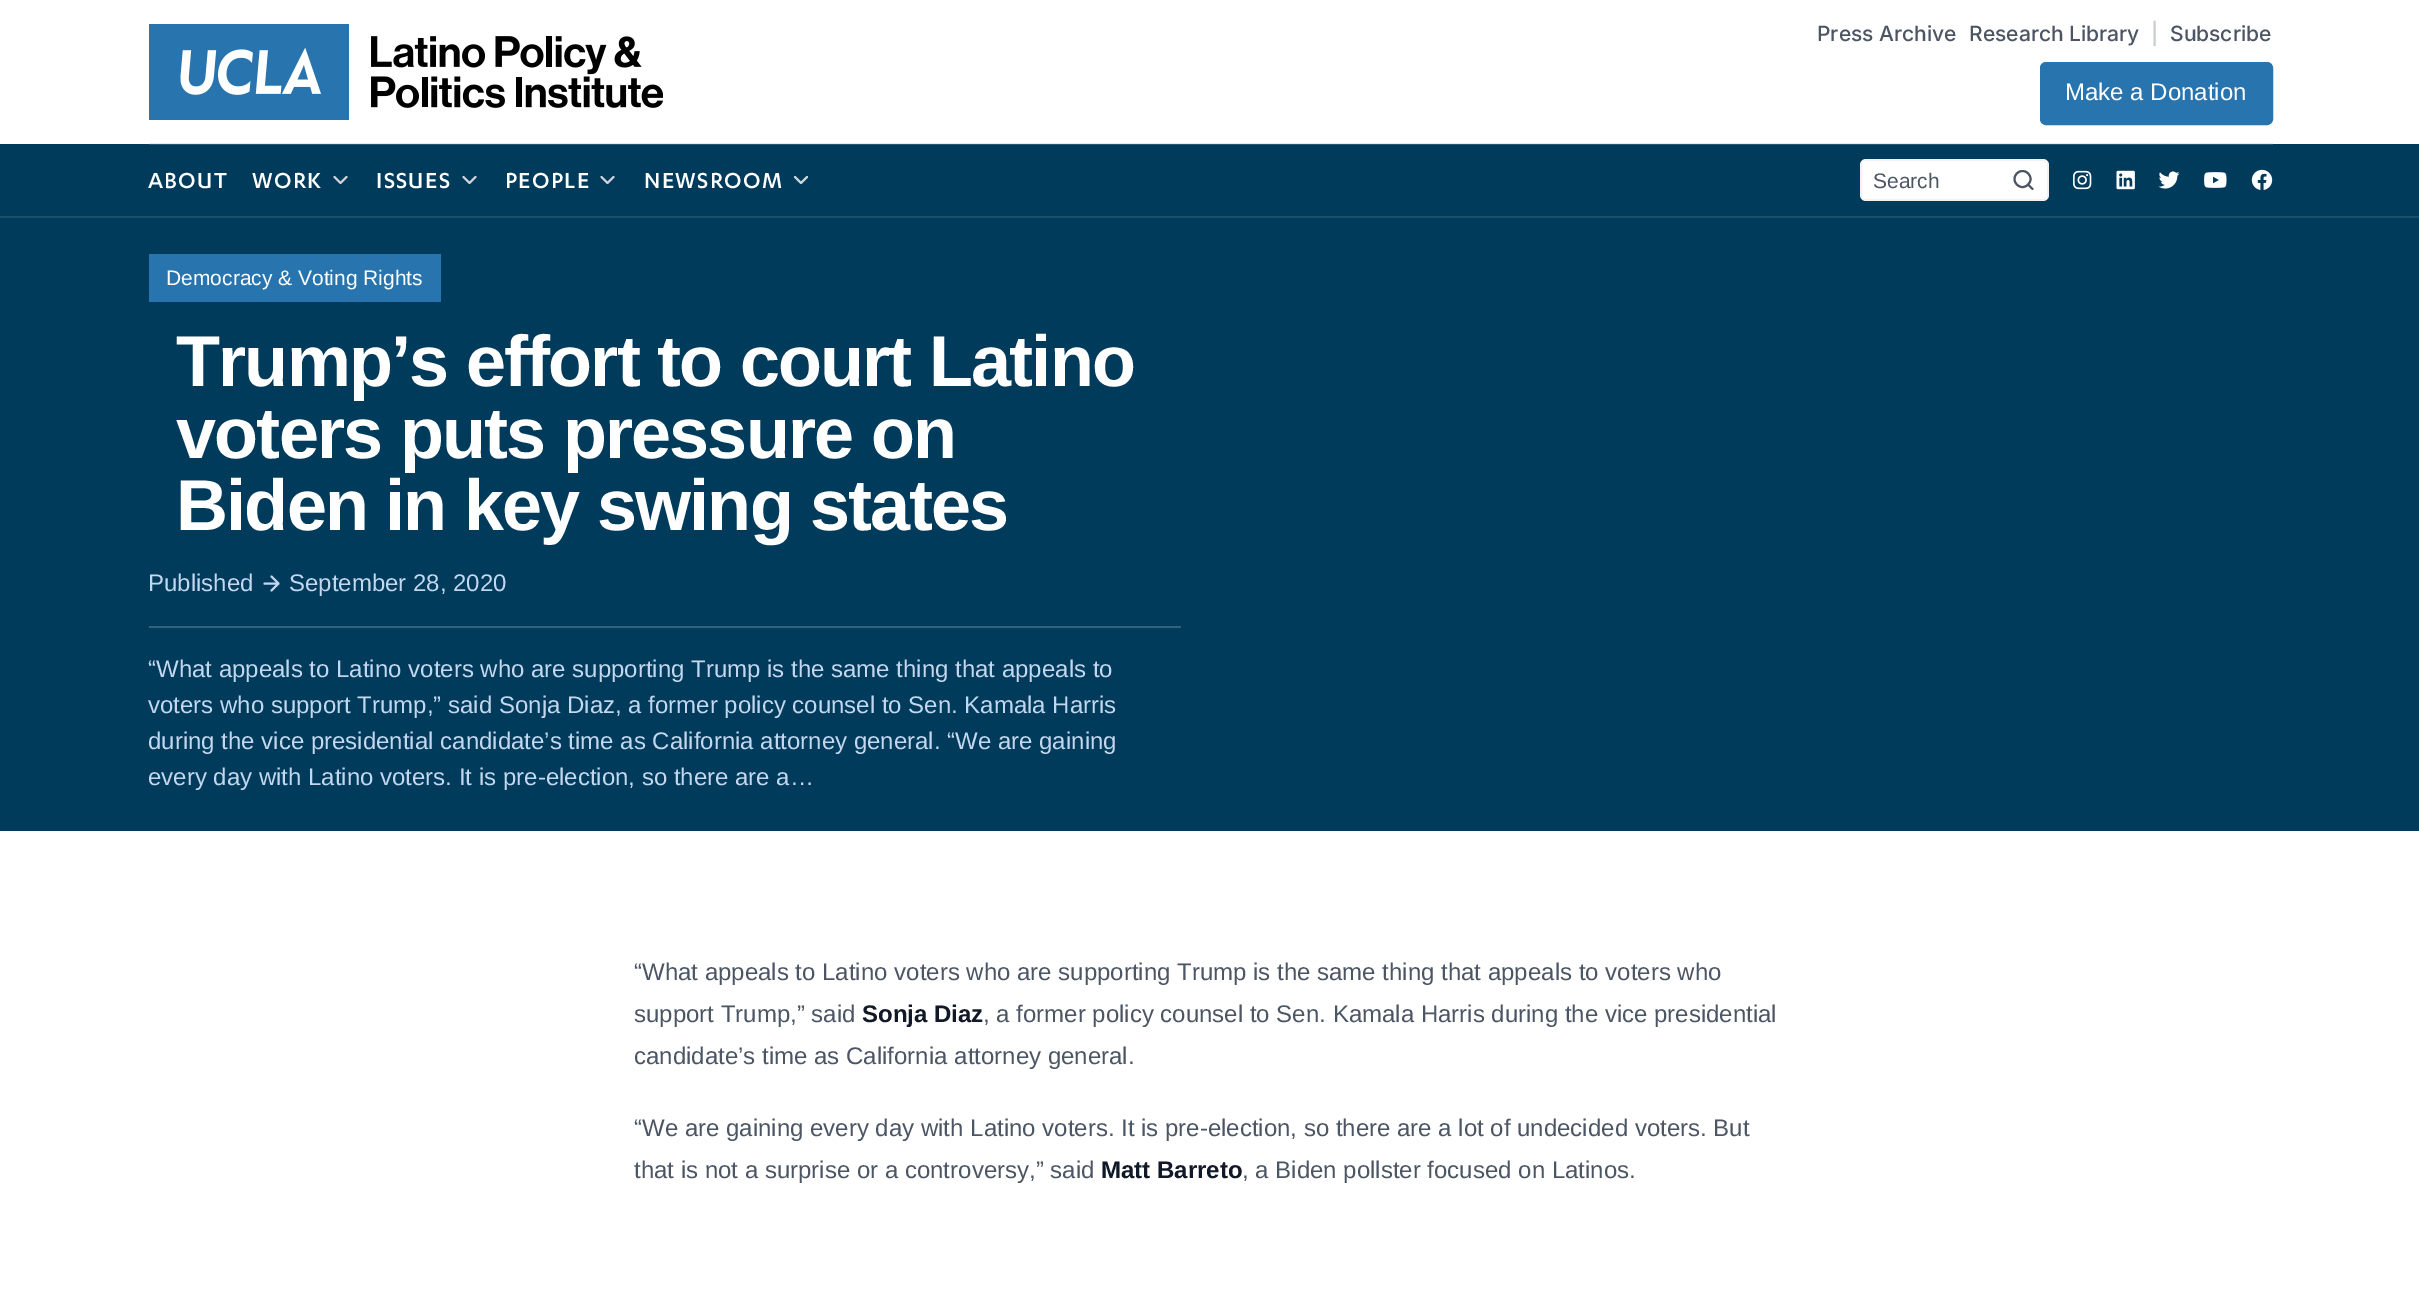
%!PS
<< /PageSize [2419 1308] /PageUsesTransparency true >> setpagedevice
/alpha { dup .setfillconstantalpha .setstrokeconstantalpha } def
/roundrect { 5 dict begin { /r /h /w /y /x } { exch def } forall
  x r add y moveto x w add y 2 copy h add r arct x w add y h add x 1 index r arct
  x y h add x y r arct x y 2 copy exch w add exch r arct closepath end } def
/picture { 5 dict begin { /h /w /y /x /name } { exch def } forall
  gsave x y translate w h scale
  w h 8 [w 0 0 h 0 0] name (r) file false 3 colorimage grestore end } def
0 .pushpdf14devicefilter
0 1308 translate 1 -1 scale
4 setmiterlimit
1 setgray
0 0 2419 1308 rectfill
0.902 0.91 0.922 setrgbcolor
149 143 2124 1 rectfill
(img1.rgb) 149 24 514 96 picture
/Inter-Medium [21 0 0 -21 0 0] selectfont
0.294 0.333 0.388 setrgbcolor
1817 41 moveto (Press Archive) show
1969 41 moveto (Research Library) show
0.788 0.8 0.816 setrgbcolor
2151 41 moveto (|) show
0.294 0.333 0.388 setrgbcolor
2170 41 moveto (Subscribe) show
0.153 0.455 0.682 setrgbcolor
2041 63 231 61 5 roundrect gsave fill grestore
2 setlinewidth
stroke
/LiberationSans-Regular [24 0 0 -24 0 0] selectfont
1 setgray
2065 100 moveto (Make a Donation) show
0 0.231 0.361 setrgbcolor
0 144 2419 687 rectfill
/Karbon-Medium [25.25 0 0 -25.25 0 0] selectfont
1 setgray
148 188 moveto 1.25 0 (ABOUT) ashow
252 188 moveto 1.25 0 (WORK) ashow
0.82 0.835 0.859 setrgbcolor
1 setlinecap
1 setlinejoin
newpath 334.5 177 moveto 340.5 183 lineto 346.5 177 lineto stroke
1 setgray
376 188 moveto 1.25 0 (ISSUES) ashow
0.82 0.835 0.859 setrgbcolor
newpath 463.5 177 moveto 469.5 183 lineto 475.5 177 lineto stroke
1 setgray
505 188 moveto 1.25 0 (PEOPLE) ashow
0.82 0.835 0.859 setrgbcolor
newpath 601.5 177 moveto 607.5 183 lineto 613.5 177 lineto stroke
1 setgray
644 188 moveto 1.25 0 (NEWSROOM) ashow
0.82 0.835 0.859 setrgbcolor
newpath 795 177 moveto 801 183 lineto 807 177 lineto stroke
1 setgray
1860 159 189 42 6 roundrect fill
0.05 alpha
0 setgray
0 setlinecap
0 setlinejoin
1861 160 187 40 rectstroke
/LiberationSans-Regular [21 0 0 -21 0 0] selectfont
1 alpha
0.294 0.333 0.388 setrgbcolor
1873 188 moveto (Search) show
newpath 2022.5 179 8 0 360 arc closepath stroke
1 setlinecap
1 setlinejoin
newpath 2032.5 189 moveto 2028 184.5 lineto stroke
(img2.rgb) 2073 170 19 20 picture
(img3.rgb) 2116 170 19 20 picture
(img4.rgb) 2158 171 22 18 picture
(img5.rgb) 2204 172 23 16 picture
(img6.rgb) 2251 169 22 21 picture
0.153 0.333 0.443 setrgbcolor
149 144 2124 1 rectfill
0.102 0.31 0.424 setrgbcolor
0 216 2419 2 rectfill
0.153 0.455 0.682 setrgbcolor
149 254 292 48 rectfill
1 setgray
166 285 moveto (Democracy & Voting Rights) show
/LiberationSans-Bold [72 0 0 -72 0 0] selectfont
176 386 moveto -1.8 0 (Trump’s effort to court Latino) ashow
176 458 moveto -1.8 0 (voters puts pressure on) ashow
176 530 moveto -1.8 0 (Biden in key swing states) ashow
/LiberationSans-Regular [24 0 0 -24 0 0] selectfont
0.765 0.843 0.933 setrgbcolor
148 591 moveto (Published) show
newpath 264.5 583.5 moveto 278.5 583.5 lineto 271.5 576.5 moveto 278.5 583.5 lineto 271.5 590.5 lineto stroke
289 591 moveto (September 28, 2020) show
0.2 0.384 0.49 setrgbcolor
149 626 1032 2 rectfill
0.765 0.843 0.933 setrgbcolor
148 677 moveto (“What appeals to Latino voters who are supporting Trump is the same thing that appeals to) show
148 713 moveto (voters who support Trump,” said Sonja Diaz, a former policy counsel to Sen. Kamala Harris) show
148 749 moveto (during the vice presidential candidate’s time as California attorney general. “We are gaining) show
148 785 moveto (every day with Latino voters. It is pre-election, so there are a…) show
0.294 0.333 0.388 setrgbcolor
634 980 moveto (“What appeals to Latino voters who are supporting Trump is the same thing that appeals to voters who) show
634 1022 moveto (support Trump,” said) show
/LiberationSans-Bold [24 0 0 -24 0 0] selectfont
0.067 0.094 0.153 setrgbcolor
862 1022 moveto (Sonja Diaz) show
/LiberationSans-Regular [24 0 0 -24 0 0] selectfont
0.294 0.333 0.388 setrgbcolor
983 1022 moveto (, a former policy counsel to Sen. Kamala Harris during the vice presidential) show
634 1064 moveto (candidate’s time as California attorney general.) show
634 1136 moveto (“We are gaining every day with Latino voters. It is pre-election, so there are a lot of undecided voters. But) show
634 1178 moveto (that is not a surprise or a controversy,” said) show
/LiberationSans-Bold [24 0 0 -24 0 0] selectfont
0.067 0.094 0.153 setrgbcolor
1101 1178 moveto (Matt Barreto) show
/LiberationSans-Regular [24 0 0 -24 0 0] selectfont
0.294 0.333 0.388 setrgbcolor
1242 1178 moveto (, a Biden pollster focused on Latinos.) show
.poppdf14devicefilter showpage
